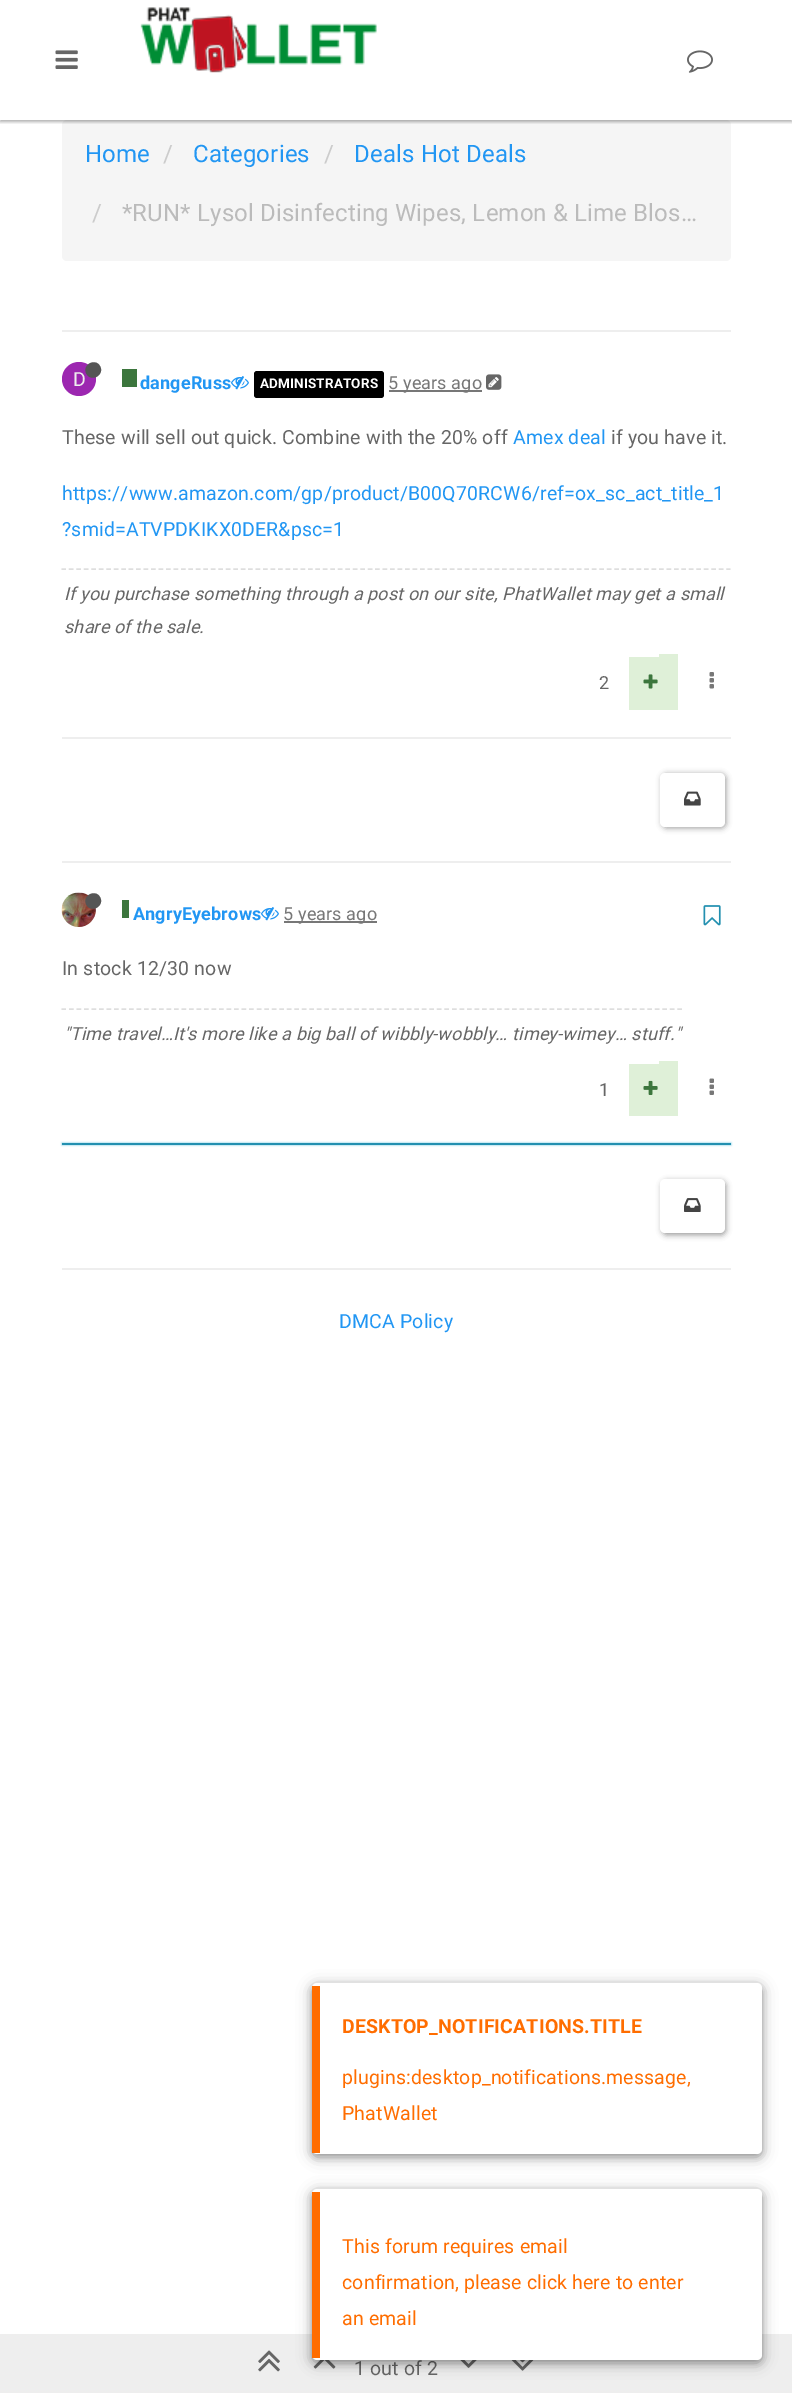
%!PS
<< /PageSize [792 2393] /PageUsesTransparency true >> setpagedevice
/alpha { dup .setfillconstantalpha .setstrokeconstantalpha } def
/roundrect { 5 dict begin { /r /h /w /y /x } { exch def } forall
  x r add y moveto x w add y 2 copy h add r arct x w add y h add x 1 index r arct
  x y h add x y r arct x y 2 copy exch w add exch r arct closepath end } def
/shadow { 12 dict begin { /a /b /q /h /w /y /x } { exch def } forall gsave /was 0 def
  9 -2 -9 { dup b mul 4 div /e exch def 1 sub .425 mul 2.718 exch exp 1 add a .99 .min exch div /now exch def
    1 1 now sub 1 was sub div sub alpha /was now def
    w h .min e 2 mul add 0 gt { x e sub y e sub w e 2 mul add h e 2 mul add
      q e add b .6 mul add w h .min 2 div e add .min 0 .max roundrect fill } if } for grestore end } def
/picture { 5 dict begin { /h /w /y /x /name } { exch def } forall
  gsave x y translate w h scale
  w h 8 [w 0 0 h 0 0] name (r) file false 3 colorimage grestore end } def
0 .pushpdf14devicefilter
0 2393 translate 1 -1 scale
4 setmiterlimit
1 setgray
0 0 792 2393 rectfill
0.961 setgray
62 120 669 141 5 roundrect fill
gsave
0 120 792 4 rectclip
0 setgray
0 2 792 120 0 1.5 0.3 shadow
grestore
(img1.rgb) 55 50 23 19 picture
(img2.rgb) 140 7 237 66 picture
(img3.rgb) 687 50 26 23 picture
/Roboto-Regular [24 0 0 -24 0 0] selectfont
0.129 0.588 0.953 setrgbcolor
85 162 moveto 0.15 0 (Home) ashow
0.8 setgray
163 162 moveto 0.15 0 (/) ashow
0.129 0.588 0.953 setrgbcolor
193 162 moveto 0.15 0 (Categories) ashow
0.8 setgray
324 162 moveto 0.15 0 (/) ashow
0.129 0.588 0.953 setrgbcolor
354 162 moveto 0.15 0 (Deals Hot Deals) ashow
0.8 setgray
92 221 moveto 0.15 0 (/) ashow
0.733 setgray
122 221 moveto 0.15 0 (*RUN* Lysol Disinfecting Wipes, Lemon & Lime Blos…) ashow
0.933 setgray
62 330 669 2 rectfill
0.612 0.153 0.69 setrgbcolor
newpath 79 379 17 0 360 arc closepath fill
/Roboto-Regular [19.5 0 0 -19.5 0 0] selectfont
0.933 setgray
73 386 moveto 0.15 0 (D) ashow
0.333 setgray
newpath 100 366 moveto 105 375 91.5 382.5 86.5 374 curveto 81.5 365 95 357.5 100 366 curveto closepath fill
0.235 0.463 0.239 setrgbcolor
122 369 15 18 rectfill
/Roboto-Bold [18 0 0 -18 0 0] selectfont
0.129 0.588 0.953 setrgbcolor
140 389 moveto 0.15 0 (dangeRuss) ashow
(img4.rgb) 231 376 18 14 picture
0 setgray
254 371 130 27 3 roundrect fill
/Roboto-Bold [13.5 0 0 -13.5 0 0] selectfont
1 setgray
260 388 moveto 0.15 0 (ADMINISTRATORS) ashow
0.467 setgray
389 390 93 2 rectfill
/Roboto-Regular [18 0 0 -18 0 0] selectfont
388 389 moveto 0.15 0 (5 years ago) ashow
(img5.rgb) 486 374 16 16 picture
/Roboto-Regular [19.5 0 0 -19.5 0 0] selectfont
0.4 setgray
62 444 moveto 0.15 0 (These will sell out quick. Combine with the 20% off) ashow
0.129 0.588 0.953 setrgbcolor
513 444 moveto 0.15 0 (Amex deal) ashow
0.4 setgray
611 444 moveto 0.15 0 (if you have it.) ashow
0.129 0.588 0.953 setrgbcolor
62 500 moveto 0.15 0 (https://www.amazon.com/gp/product/B00Q70RCW6/ref=ox_sc_act_title_1) ashow
62 536 moveto 0.15 0 (?smid=ATVPDKIKX0DER&psc=1) ashow
0.871 setgray
1.5 setlinewidth
[4.5 2.97] 0 setdash
newpath 61.5 569 moveto 730.5 569 lineto stroke
/Roboto-Italic [18 0 0 -18 0 0] selectfont
0.4 setgray
64 600 moveto 0.15 0 (If you purchase something through a post on our site, PhatWallet may get a small) ashow
64 633 moveto 0.15 0 (share of the sale.) ashow
/Roboto-Regular [18 0 0 -18 0 0] selectfont
599 689 moveto 0.15 0 (2) ashow
0.875 0.941 0.847 setrgbcolor
629 657 30 53 rectfill
659 654 19 56 rectfill
(img6.rgb) 643 674 15 15 picture
(img7.rgb) 709 672 5 17 picture
0.933 setgray
62 737 669 2 rectfill
0 setgray
662 774 64 54 5 3 0.4 shadow
1 setgray
660 773 65 54 5 roundrect fill
(img8.rgb) 684 791 17 15 picture
0.933 setgray
62 861 669 2 rectfill
(img9.rgb) 61 892 35 35 picture
0.333 setgray
newpath 100 897 moveto 105 906 91.5 913.5 86.5 905 curveto 81.5 896 95 888.5 100 897 curveto closepath fill
0.235 0.463 0.239 setrgbcolor
122 900 7 18 rectfill
/Roboto-Bold [18 0 0 -18 0 0] selectfont
0.129 0.588 0.953 setrgbcolor
133 920 moveto 0.15 0 (AngryEyebrows) ashow
(img4.rgb) 261 907 18 14 picture
0.467 setgray
284 921 93 2 rectfill
/Roboto-Regular [18 0 0 -18 0 0] selectfont
283 920 moveto 0.15 0 (5 years ago) ashow
(img10.rgb) 703 905 18 21 picture
/Roboto-Regular [19.5 0 0 -19.5 0 0] selectfont
0.4 setgray
62 975 moveto 0.15 0 (In stock 12/30 now) ashow
0.871 setgray
[4.5 3.01] 0 setdash
newpath 61.5 1009 moveto 682.5 1009 lineto stroke
/Roboto-Italic [18 0 0 -18 0 0] selectfont
0.4 setgray
64 1040 moveto 0.15 0 ("Time travel…It's more like a big ball of wibbly-wobbly… timey-wimey… stuff.") ashow
/Roboto-Regular [18 0 0 -18 0 0] selectfont
599 1096 moveto 0.15 0 (1) ashow
0.875 0.941 0.847 setrgbcolor
629 1064 30 52 rectfill
659 1061 19 55 rectfill
(img11.rgb) 643 1080 15 15 picture
(img12.rgb) 709 1078 5 17 picture
0.357 0.753 0.871 setrgbcolor
62 1143 669 2 0 1 1 shadow
0.137 0.565 0.69 setrgbcolor
62 1143 669 2 rectfill
0 setgray
662 1181 64 54 5 3 0.4 shadow
1 setgray
660 1179 65 54 5 roundrect fill
(img13.rgb) 684 1198 17 14 picture
0.933 setgray
62 1268 669 2 rectfill
0 2334 792 59 rectfill
(img14.rgb) 258 2350 22 22 picture
(img15.rgb) 313 2360 23 9 picture
/Roboto-Regular [19.5 0 0 -19.5 0 0] selectfont
0.4 setgray
354 2375 moveto 0.15 0 (1 out of 2) ashow
(img16.rgb) 460 2360 17 8 picture
(img17.rgb) 511 2360 23 11 picture
0.129 0.588 0.953 setrgbcolor
339 1328 moveto 0.15 0 (DMCA Policy) ashow
0 setgray
312 1986 450 171 5 7.5 0.25 shadow
312 1986 450 171 5 4 0.25 shadow
1 setgray
312 1983 450 171 5 roundrect fill
1 0.427 0 setrgbcolor
312 1986 8 167 rectfill
/Roboto-Bold [19.5 0 0 -19.5 0 0] selectfont
342 2033 moveto 0.15 0 (DESKTOP_NOTIFICATIONS.TITLE) ashow
/Roboto-Regular [19.5 0 0 -19.5 0 0] selectfont
342 2084 moveto 0.15 0 (plugins:desktop_notifications.message,) ashow
342 2120 moveto 0.15 0 (PhatWallet) ashow
0 setgray
312 2192 450 171 5 7.5 0.25 shadow
312 2192 450 171 5 4 0.25 shadow
1 setgray
312 2189 450 171 5 roundrect fill
1 0.427 0 setrgbcolor
312 2192 8 166 rectfill
342 2253 moveto 0.15 0 (This forum requires email) ashow
342 2289 moveto 0.15 0 (confirmation, please click here to enter) ashow
342 2325 moveto 0.15 0 (an email) ashow
.poppdf14devicefilter showpage
